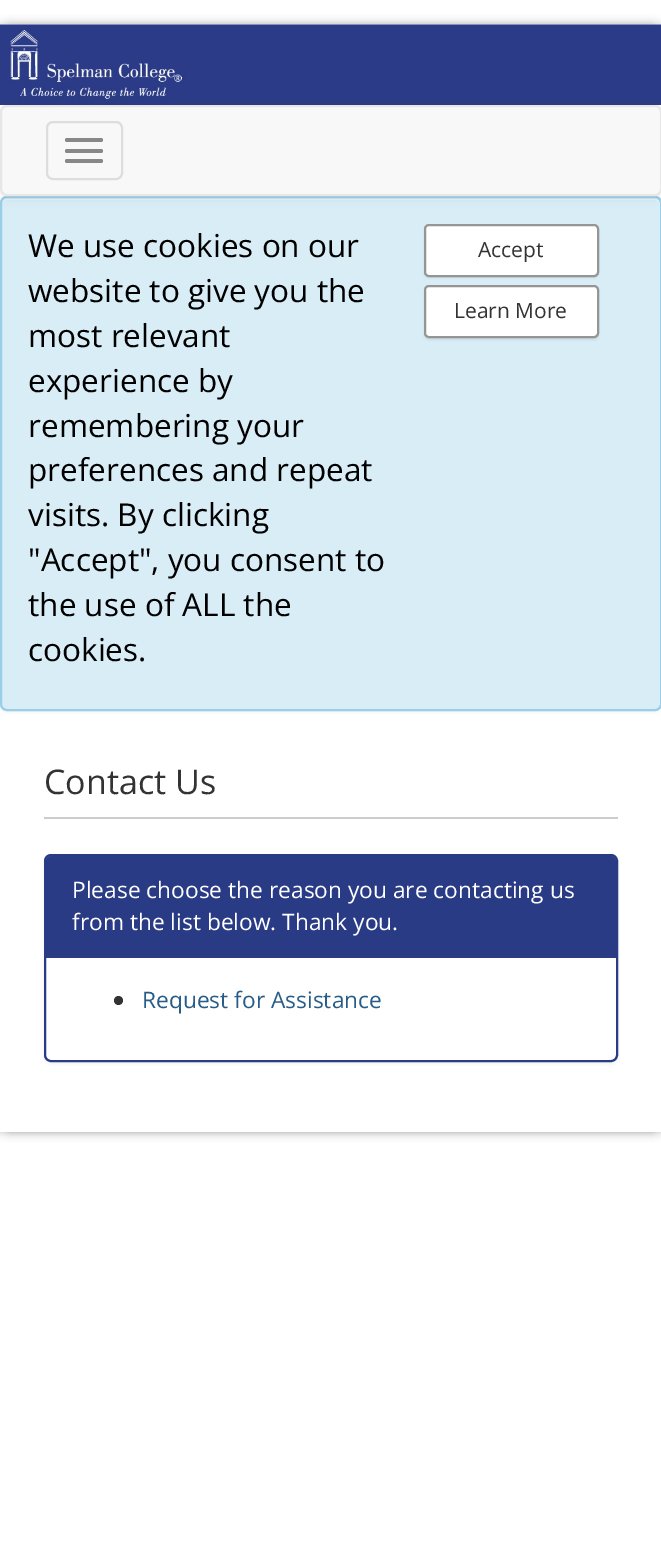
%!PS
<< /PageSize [661 1545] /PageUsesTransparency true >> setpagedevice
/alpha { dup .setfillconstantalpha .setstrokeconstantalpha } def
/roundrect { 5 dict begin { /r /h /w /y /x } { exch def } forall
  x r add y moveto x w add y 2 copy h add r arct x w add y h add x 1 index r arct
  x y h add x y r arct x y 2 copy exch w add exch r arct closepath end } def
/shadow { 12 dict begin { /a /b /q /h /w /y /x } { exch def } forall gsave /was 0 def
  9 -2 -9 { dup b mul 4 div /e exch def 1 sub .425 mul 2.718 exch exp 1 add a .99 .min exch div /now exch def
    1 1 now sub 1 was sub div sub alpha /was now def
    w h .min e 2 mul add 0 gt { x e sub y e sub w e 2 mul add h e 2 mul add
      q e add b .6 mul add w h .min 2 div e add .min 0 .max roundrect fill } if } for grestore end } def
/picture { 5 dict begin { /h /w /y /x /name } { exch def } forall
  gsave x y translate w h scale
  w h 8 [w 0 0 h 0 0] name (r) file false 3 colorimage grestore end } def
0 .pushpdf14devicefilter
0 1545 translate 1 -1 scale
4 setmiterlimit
1 setgray
0 0 661 1545 rectfill
gsave
newpath 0 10 moveto 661 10 lineto 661 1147 lineto 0 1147 lineto closepath 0 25 moveto 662 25 lineto 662 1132 lineto 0 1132 lineto closepath eoclip newpath
0 setgray
-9 25 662 1107 0 4.5 0.2 shadow
9 25 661 1107 0 4.5 0.2 shadow
grestore
(img1.rgb) 0 24 661 81 picture
0 setgray
0 198 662 514 7 2 0.05 shadow
0.851 0.929 0.969 setrgbcolor
0 196 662 515 7 roundrect fill
0.89 0.949 0.976 setrgbcolor
newpath 7 200 moveto 654 200 lineto 657 200 660 202 660 205 curveto 660 203 lineto 660 200 658 198 655 198 curveto 7 198 lineto 4 198 2 200 2 203 curveto 2 205 lineto 2 202 4 200 7 200 curveto closepath fill
0.604 0.812 0.918 setrgbcolor
2 setlinewidth
1 197 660 513 6 roundrect stroke
0 setgray
0 107 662 91 7 4.5 0.07 shadow
0.973 setgray
1 106 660 89 6 roundrect gsave fill grestore
0.906 setgray
stroke
0.867 setgray
47 122 75 57 6 roundrect stroke
0.533 setgray
65 138 38 4 2 roundrect fill
65 149 38 4 2 roundrect fill
65 159 38 4 2 roundrect fill
/OpenSans-Regular [31.5 0 0 -31.5 0 0] selectfont
0 setgray
28 257 moveto (We use cookies on our) show
28 302 moveto (website to give you the) show
28 347 moveto (most relevant) show
28 392 moveto (experience by) show
28 437 moveto (remembering your) show
28 481 moveto (preferences and repeat) show
28 526 moveto (visits. By clicking) show
28 571 moveto ("Accept", you consent to) show
28 616 moveto (the use of ALL the) show
28 661 moveto (cookies.) show
424 226 175 52 5 1 0.07 shadow
1 setgray
425 225 173 51 4 roundrect gsave fill grestore
0.584 setgray
stroke
/OpenSans-Regular [21 0 0 -21 0 0] selectfont
0.2 setgray
478 257 moveto (Accept) show
0 setgray
424 287 175 53 5 1 0.07 shadow
1 setgray
425 286 173 51 4 roundrect gsave fill grestore
0.584 setgray
stroke
0.2 setgray
454 318 moveto (Learn More) show
/OpenSans-Regular [34 0 0 -34 0 0] selectfont
44 794 moveto (Contact Us) show
0.8 setgray
44 817 574 2 rectfill
0 setgray
44 856 574 208 7 2 0.05 shadow
1 setgray
45 855 572 206 6 roundrect gsave fill grestore
0.165 0.231 0.525 setrgbcolor
stroke
newpath 51 856 moveto 611 856 lineto 614 856 616 858 616 861 curveto 616 957 lineto 46 957 lineto 46 861 lineto 46 858 48 856 51 856 curveto closepath fill
46 957 570 1 rectfill
/OpenSans-Regular [22.75 0 0 -22.75 0 0] selectfont
1 setgray
72 898 moveto (Please choose the reason you are contacting us) show
72 930 moveto (from the list below. Thank you.) show
0.2 setgray
newpath 118.5 1000.5 4.5 0 360 arc closepath fill
0.149 0.361 0.529 setrgbcolor
142 1008 moveto (Request for Assistance) show
.poppdf14devicefilter showpage
